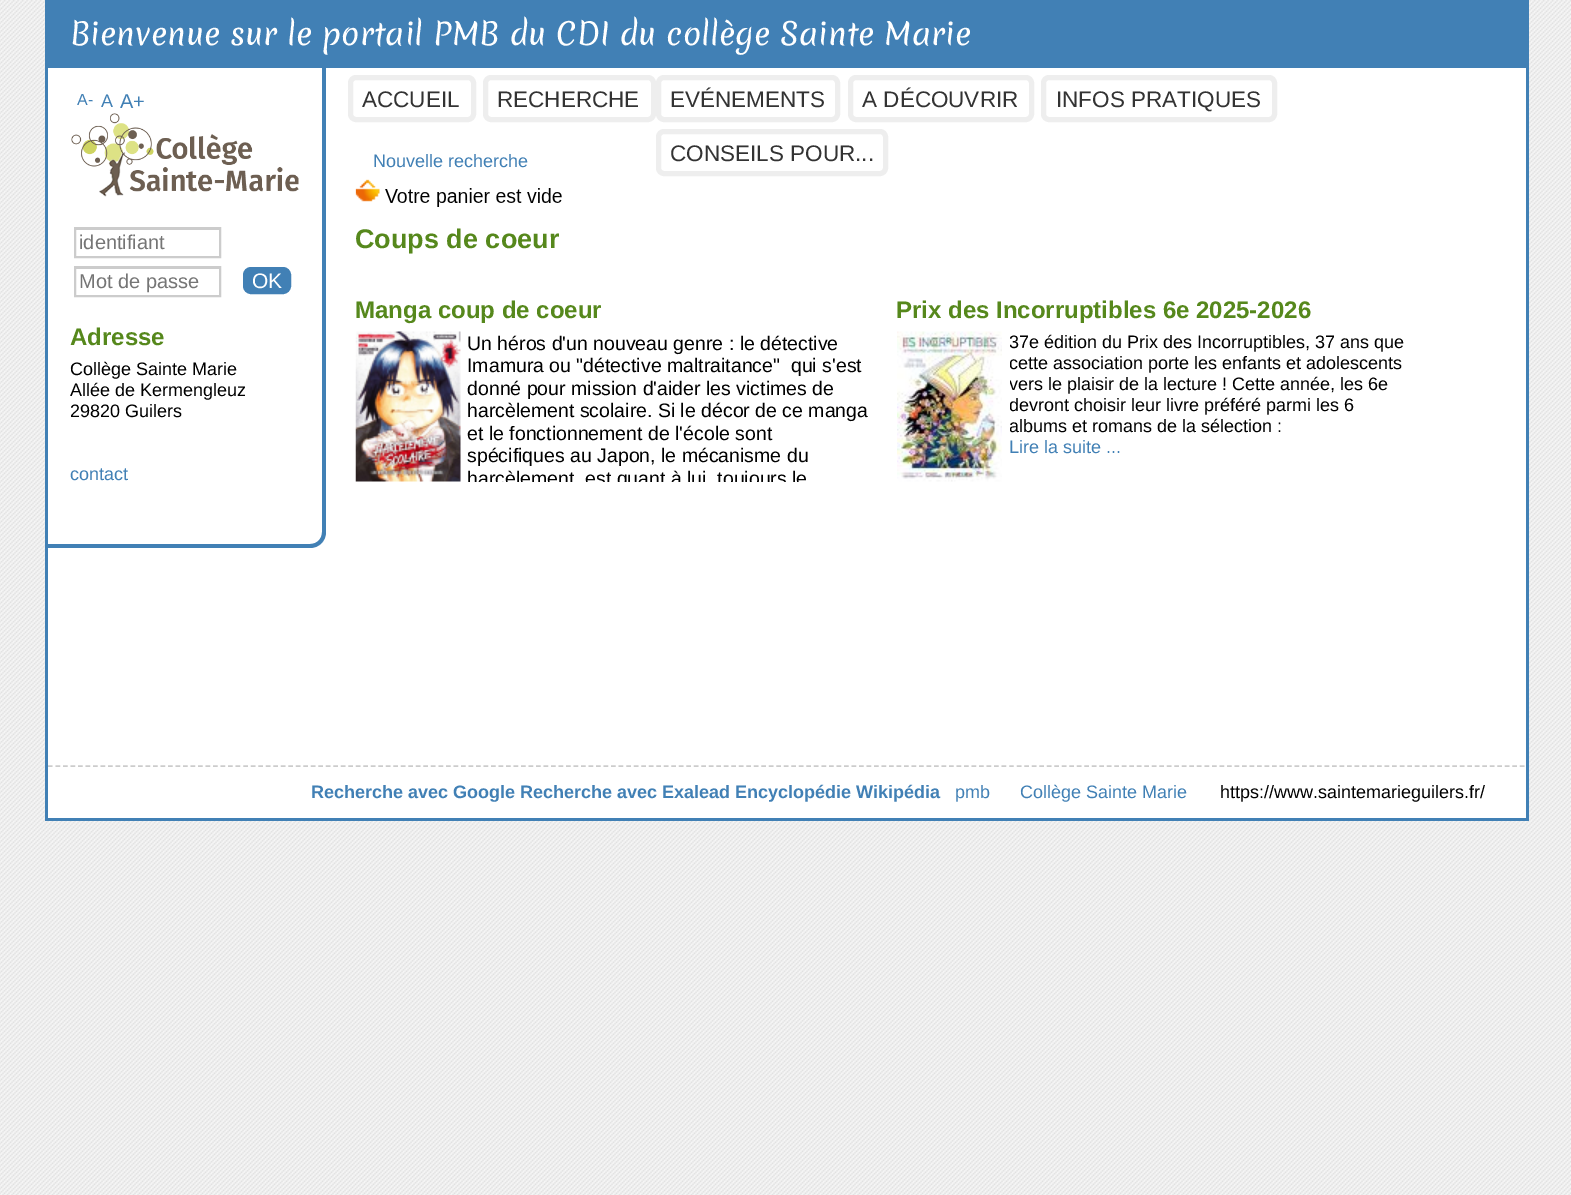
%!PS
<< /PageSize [1571 1195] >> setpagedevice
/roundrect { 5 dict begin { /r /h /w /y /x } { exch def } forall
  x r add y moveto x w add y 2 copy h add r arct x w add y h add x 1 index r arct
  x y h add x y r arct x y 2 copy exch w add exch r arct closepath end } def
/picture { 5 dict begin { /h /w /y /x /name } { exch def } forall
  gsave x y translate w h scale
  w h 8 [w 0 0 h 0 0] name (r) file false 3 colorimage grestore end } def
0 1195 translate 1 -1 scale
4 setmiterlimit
1 setgray
0 0 1571 1195 rectfill
(img1.rgb) 0 0 1571 1195 picture
48 68 1478 750 rectfill
0.255 0.502 0.71 setrgbcolor
1526 0 3 821 rectfill
45 818 1484 3 rectfill
45 0 3 821 rectfill
48 0 1478 68 rectfill
/Merienda-Regular [30 0 0 -30 0 0] selectfont
1 setgray
70 45 moveto (Bienvenue sur le portail PMB du CDI du collège Sainte Marie) show
0.933 setgray
5 setlinewidth
350.5 77.5 123 42 5.5 roundrect stroke
/LiberationSans-Regular [22.5 0 0 -22.5 0 0] selectfont
0.2 setgray
362 107 moveto (ACCUEIL) show
0.933 setgray
485.5 77.5 168 42 5.5 roundrect stroke
0.2 setgray
497 107 moveto (RECHERCHE) show
0.933 setgray
658.5 77.5 179 42 5.5 roundrect stroke
0.2 setgray
670 107 moveto (EVÉNEMENTS) show
0.933 setgray
850.5 77.5 181 42 5.5 roundrect stroke
0.2 setgray
862 107 moveto (A DÉCOUVRIR) show
0.933 setgray
1043.5 77.5 231 42 5.5 roundrect stroke
0.2 setgray
1056 107 moveto (INFOS PRATIQUES) show
0.933 setgray
658.5 131.5 227 42 5.5 roundrect stroke
0.2 setgray
670 161 moveto (CONSEILS POUR...) show
1 setgray
newpath 45 68 moveto 326 68 lineto 326 533 lineto 326 541.5 319.5 548 311 548 curveto 45 548 lineto closepath fill
0.255 0.502 0.71 setrgbcolor
newpath 45 68 moveto 326 68 lineto 326 532 lineto 326 541 319 548 310 548 curveto 45 548 lineto closepath 48 68 moveto 322 68 lineto 322 532 lineto 322 539 317 544 310 544 curveto 48 544 lineto closepath eofill
/LiberationSans-Regular [16 0 0 -16 0 0] selectfont
77 105 moveto (A-) show
/LiberationSans-Regular [18 0 0 -18 0 0] selectfont
101 107 moveto (A) show
/LiberationSans-Regular [20 0 0 -20 0 0] selectfont
120 108 moveto (A+) show
(img2.rgb) 71 113 228 84 picture
0.804 setgray
75 229 144 1 rectfill
0.8 setgray
2 setlinewidth
75 228 145 29 rectstroke
0.459 setgray
79 249 moveto (identifiant) show
0.804 setgray
75 268 144 1 rectfill
0.8 setgray
75 267 145 29 rectstroke
0.459 setgray
79 288 moveto (Mot de passe) show
0.255 0.502 0.71 setrgbcolor
244 268 46 25 7 roundrect gsave fill grestore
stroke
/LiberationSans-Regular [21 0 0 -21 0 0] selectfont
1 setgray
252 288 moveto (OK) show
/LiberationSans-Bold [24 0 0 -24 0 0] selectfont
0.337 0.533 0.11 setrgbcolor
70 345 moveto (Adresse) show
/LiberationSans-Regular [18 0 0 -18 0 0] selectfont
0 setgray
70 375 moveto (Collège Sainte Marie) show
70 396 moveto (Allée de Kermengleuz) show
70 417 moveto (29820 Guilers) show
0.255 0.502 0.71 setrgbcolor
70 480 moveto (contact) show
373 167 moveto (Nouvelle recherche) show
(img3.rgb) 355 179 207 28 picture
gsave
356 143 1152 622 rectclip
/LiberationSans-Bold [27 0 0 -27 0 0] selectfont
0.337 0.533 0.11 setrgbcolor
355 248 moveto (Coups de coeur) show
grestore
/LiberationSans-Bold [24 0 0 -24 0 0] selectfont
0.337 0.533 0.11 setrgbcolor
355 318 moveto (Manga coup de coeur) show
(img4.rgb) 355 331 106 151 picture
/LiberationSans-Regular [19.5 0 0 -19.5 0 0] selectfont
0 setgray
467 350 moveto (Un héros d'un nouveau genre : le détective) show
467 372 moveto (Imamura ou "détective maltraitance"  qui s'est) show
467 395 moveto (donné pour mission d'aider les victimes de) show
467 417 moveto (harcèlement scolaire. Si le décor de ce manga) show
467 440 moveto (et le fonctionnement de l'école sont) show
467 462 moveto (spécifiques au Japon, le mécanisme du) show
gsave
468 332 405 150 rectclip
467 485 moveto (harcèlement, est quant à lui, toujours le) show
grestore
/LiberationSans-Bold [24 0 0 -24 0 0] selectfont
0.337 0.533 0.11 setrgbcolor
896 318 moveto (Prix des Incorruptibles 6e 2025-2026) show
(img5.rgb) 897 331 105 151 picture
gsave
1010 332 405 150 rectclip
/LiberationSans-Regular [18 0 0 -18 0 0] selectfont
0 setgray
1009 348 moveto (37e édition du Prix des Incorruptibles, 37 ans que) show
1009 369 moveto (cette association porte les enfants et adolescents) show
1009 390 moveto (vers le plaisir de la lecture ! Cette année, les 6e) show
1009 411 moveto (devront choisir leur livre préféré parmi les 6) show
1009 432 moveto (albums et romans de la sélection :) show
grestore
/LiberationSans-Regular [18 0 0 -18 0 0] selectfont
0.255 0.502 0.71 setrgbcolor
1009 453 moveto (Lire la suite ...) show
0.8 setgray
1.5 setlinewidth
[4.5 3.01] 0 setdash
newpath 48 766 moveto 1525.5 766 lineto stroke
/LiberationSans-Bold [18 0 0 -18 0 0] selectfont
0.255 0.502 0.71 setrgbcolor
311 798 moveto (Recherche avec Google Recherche avec Exalead Encyclopédie Wikipédia) show
/LiberationSans-Regular [18 0 0 -18 0 0] selectfont
955 798 moveto (pmb) show
1020 798 moveto (Collège Sainte Marie) show
0 setgray
1220 798 moveto (https://www.saintemarieguilers.fr/) show
showpage
